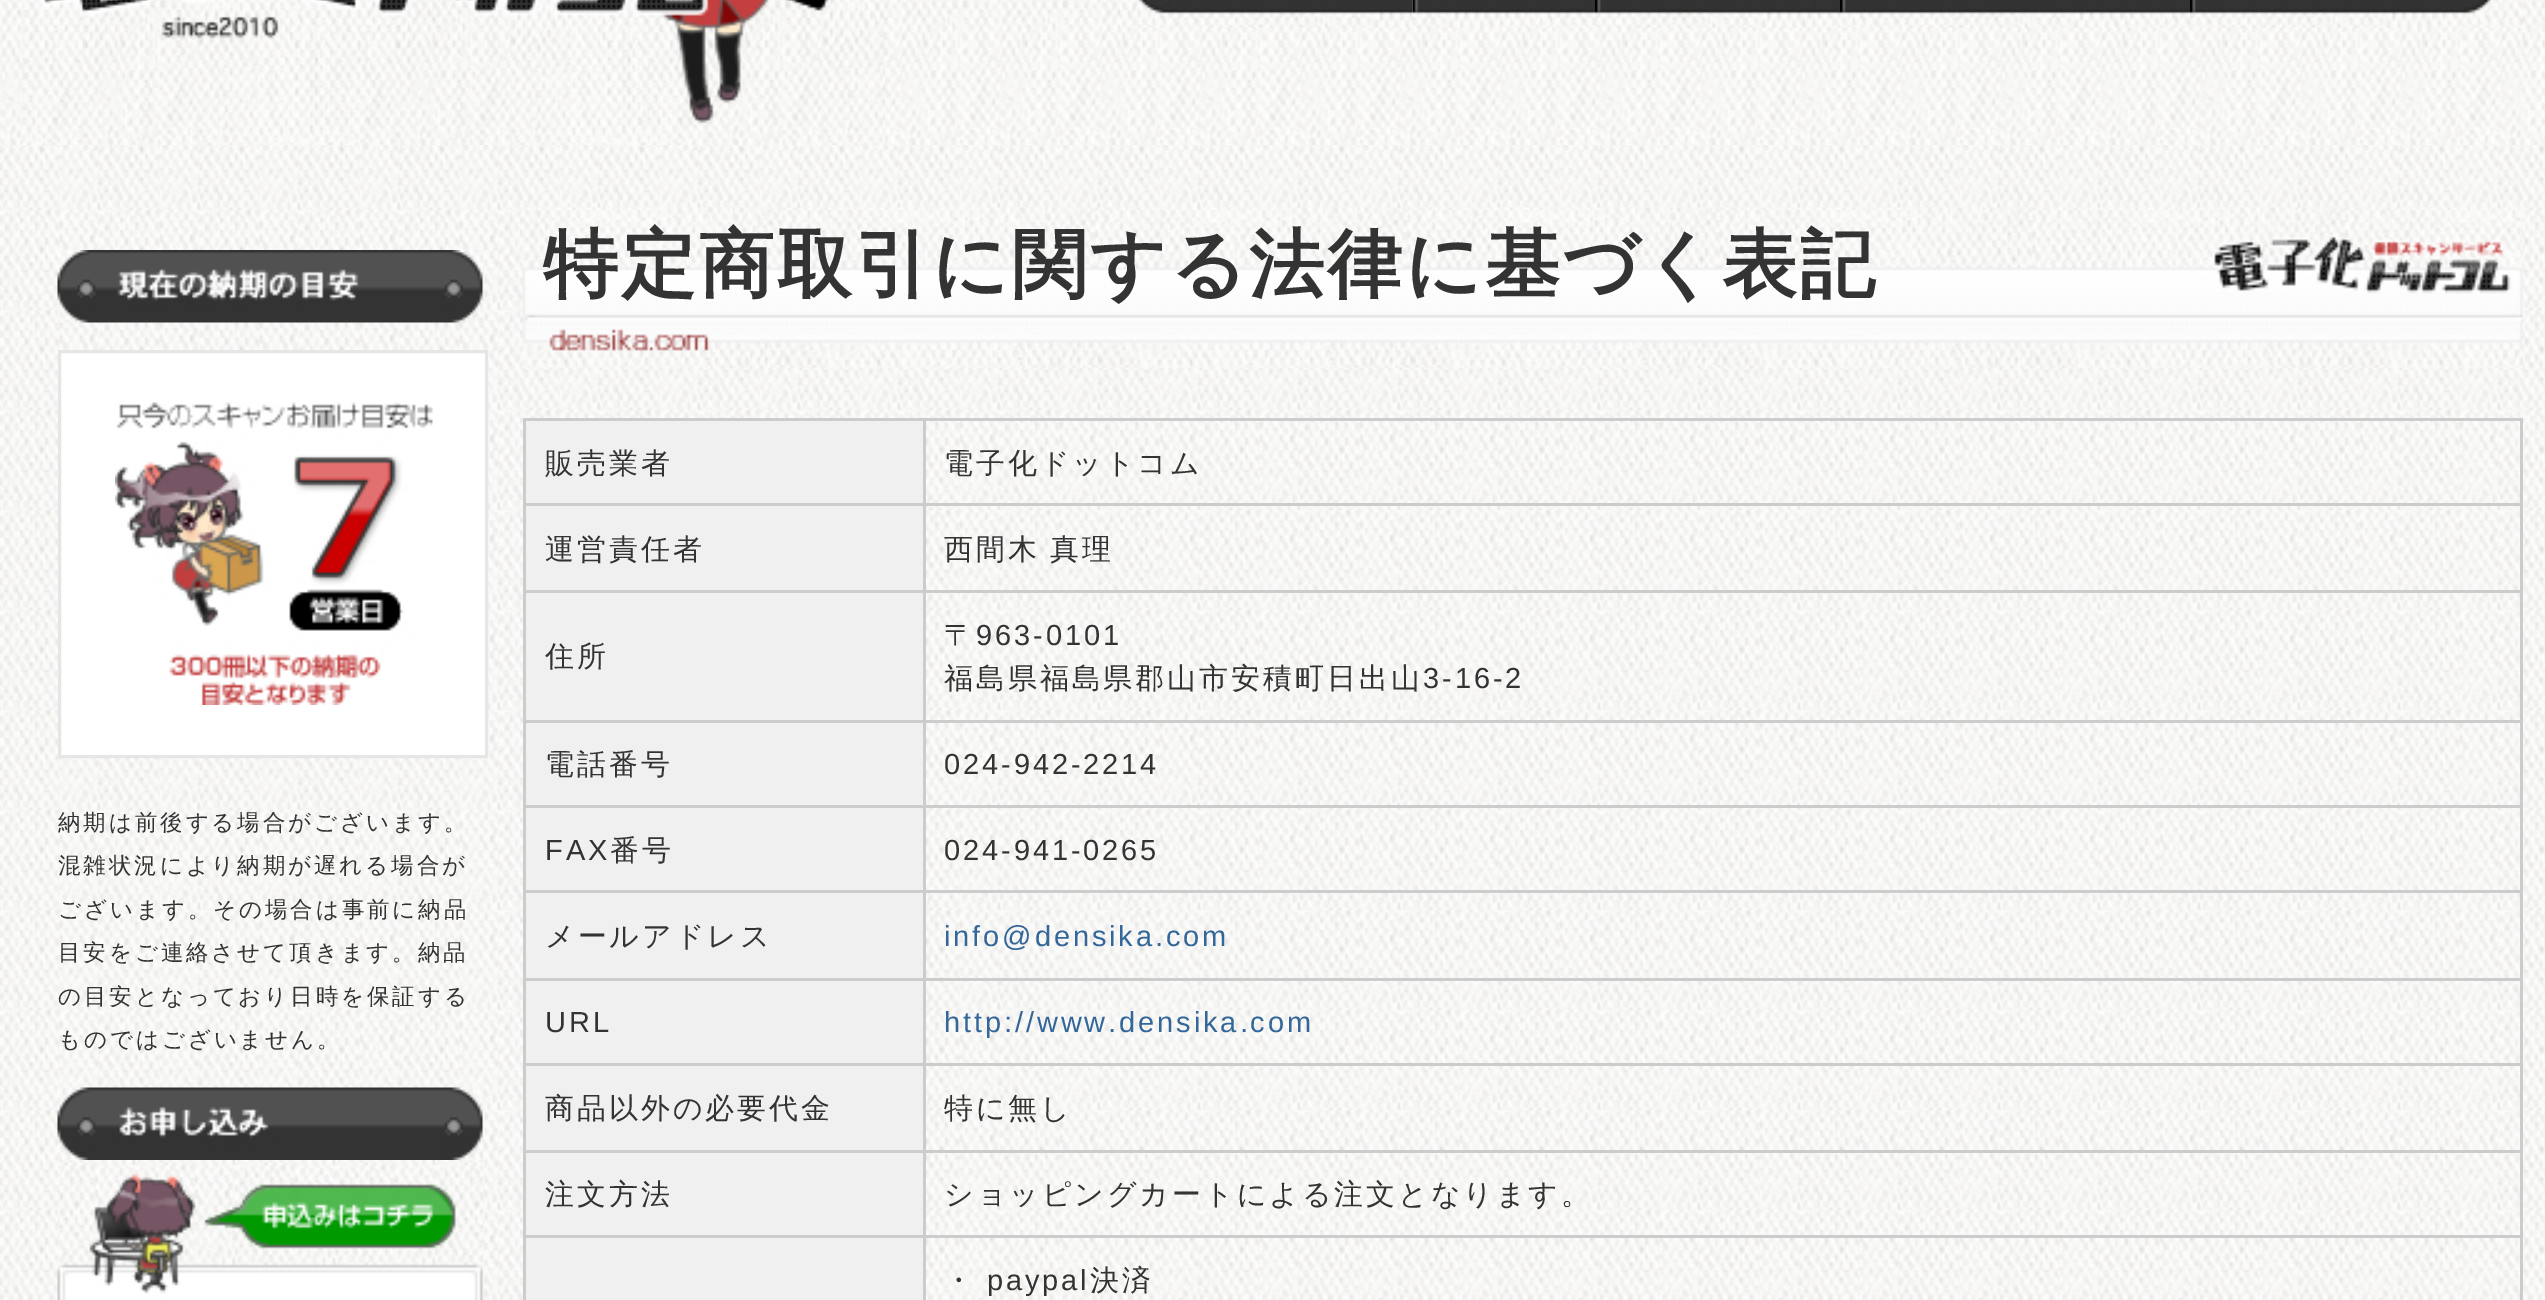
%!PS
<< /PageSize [2545 1300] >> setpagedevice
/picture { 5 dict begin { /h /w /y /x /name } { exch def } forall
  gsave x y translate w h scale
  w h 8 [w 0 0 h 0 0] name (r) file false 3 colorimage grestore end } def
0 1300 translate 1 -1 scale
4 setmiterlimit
1 setgray
0 0 2545 1300 rectfill
(img1.rgb) 0 145 2545 1155 picture
(img2.rgb) 0 0 2545 145 picture
(img3.rgb) 22 0 861 145 picture
(img4.rgb) 1120 0 293 28 picture
(img5.rgb) 1412 0 183 28 picture
(img6.rgb) 1595 0 245 28 picture
(img7.rgb) 1840 0 350 28 picture
(img8.rgb) 2190 0 333 28 picture
(img9.rgb) 57 250 426 73 picture
newpath 59.5 351.5 moveto 486.5 351.5 lineto 486.5 756.5 lineto 59.5 756.5 lineto closepath gsave fill grestore
0.902 setgray
3 setlinewidth
stroke
(img10.rgb) 115 402 318 303 picture
/WenQuanYiZenHei-Medium [22.5 0 0 -22.5 0 0] selectfont
0.2 setgray
58 830 moveto 2.9 0 (納期は前後する場合がございます。) ashow
58 873 moveto 2.9 0 (混雑状況により納期が遅れる場合が) ashow
58 917 moveto 2.9 0 (ございます。その場合は事前に納品) ashow
58 960 moveto 2.9 0 (目安をご連絡させて頂きます。納品) ashow
58 1004 moveto 2.9 0 (の目安となっており日時を保証する) ashow
58 1047 moveto 2.9 0 (ものではございません。) ashow
(img11.rgb) 57 1087 426 73 picture
(img12.rgb) 57 1160 426 140 picture
(img13.rgb) 522 207 2001 161 picture
/WenQuanYiZenHei-Bold [75 0 0 -75 0 0] selectfont
543 290 moveto 2.9 0 (特定商取引に関する法律に基づく表記) ashow
0.8 setgray
523 418 2000 3 rectfill
523 418 3 882 rectfill
0.941 setgray
526 421 397 82 rectfill
0.8 setgray
923 1235 3 65 rectfill
2520 418 3 882 rectfill
923 1235 1600 3 rectfill
923 1150 3 88 rectfill
923 1150 1600 3 rectfill
923 1063 3 90 rectfill
923 1063 1600 3 rectfill
923 978 3 87 rectfill
923 978 1600 3 rectfill
923 890 3 90 rectfill
923 890 1600 3 rectfill
923 805 3 88 rectfill
923 805 1600 3 rectfill
923 720 3 88 rectfill
923 720 1600 3 rectfill
923 590 3 133 rectfill
923 590 1600 3 rectfill
923 503 3 90 rectfill
923 503 1600 3 rectfill
923 418 3 87 rectfill
523 503 402 3 rectfill
/WenQuanYiZenHei-Medium [29 0 0 -29 0 0] selectfont
0.2 setgray
545 473 moveto 2.9 0 (販売業者) ashow
944 473 moveto 2.9 0 (電子化ドットコム) ashow
0.941 setgray
526 506 397 84 rectfill
0.8 setgray
523 590 402 3 rectfill
0.2 setgray
545 559 moveto 2.9 0 (運営責任者) ashow
944 559 moveto -1 0 32 2.9 0 (西間木 真理) awidthshow
0.941 setgray
526 593 397 127 rectfill
0.8 setgray
523 720 402 3 rectfill
0.2 setgray
545 666 moveto 2.9 0 (住所) ashow
944 645 moveto 2.9 0 (〒) ashow
/LiberationSans-Regular [29 0 0 -29 0 0] selectfont
976 645 moveto 2.9 0 (963-0101) ashow
/WenQuanYiZenHei-Medium [29 0 0 -29 0 0] selectfont
944 688 moveto 2.9 0 (福島県福島県郡山市安積町日出山) ashow
/LiberationSans-Regular [29 0 0 -29 0 0] selectfont
1423 688 moveto 2.9 0 (3-16-2) ashow
0.941 setgray
526 723 397 82 rectfill
0.8 setgray
523 805 402 3 rectfill
/WenQuanYiZenHei-Medium [29 0 0 -29 0 0] selectfont
0.2 setgray
545 774 moveto 2.9 0 (電話番号) ashow
/LiberationSans-Regular [29 0 0 -29 0 0] selectfont
944 774 moveto 2.9 0 (024-942-2214) ashow
0.941 setgray
526 808 397 82 rectfill
0.8 setgray
523 890 402 3 rectfill
0.2 setgray
545 860 moveto 2.9 0 (FAX) ashow
/WenQuanYiZenHei-Medium [29 0 0 -29 0 0] selectfont
610 860 moveto 2.9 0 (番号) ashow
/LiberationSans-Regular [29 0 0 -29 0 0] selectfont
944 860 moveto 2.9 0 (024-941-0265) ashow
0.941 setgray
526 893 397 85 rectfill
0.8 setgray
523 978 402 3 rectfill
/WenQuanYiZenHei-Medium [29 0 0 -29 0 0] selectfont
0.2 setgray
545 946 moveto 2.9 0 (メールアドレス) ashow
/LiberationSans-Regular [29 0 0 -29 0 0] selectfont
0.2 0.4 0.6 setrgbcolor
944 946 moveto 2.9 0 (info@densika.com) ashow
0.941 setgray
526 981 397 82 rectfill
0.8 setgray
523 1063 402 3 rectfill
0.2 setgray
545 1032 moveto 2.9 0 (URL) ashow
0.2 0.4 0.6 setrgbcolor
944 1032 moveto 2.9 0 (http://www.densika.com) ashow
0.941 setgray
526 1066 397 84 rectfill
0.8 setgray
523 1150 402 3 rectfill
/WenQuanYiZenHei-Medium [29 0 0 -29 0 0] selectfont
0.2 setgray
545 1118 moveto 2.9 0 (商品以外の必要代金) ashow
944 1118 moveto 2.9 0 (特に無し) ashow
0.941 setgray
526 1153 397 82 rectfill
0.8 setgray
523 1235 402 3 rectfill
0.2 setgray
545 1204 moveto 2.9 0 (注文方法) ashow
944 1204 moveto 2.9 0 (ショッピングカートによる注文となります。) ashow
0.941 setgray
526 1238 397 62 rectfill
0.2 setgray
944 1290 moveto 2.9 0 (・) ashow
/LiberationSans-Regular [29 0 0 -29 0 0] selectfont
987 1290 moveto 2.9 0 (paypal) ashow
/WenQuanYiZenHei-Medium [29 0 0 -29 0 0] selectfont
1090 1290 moveto 2.9 0 (決済) ashow
showpage
